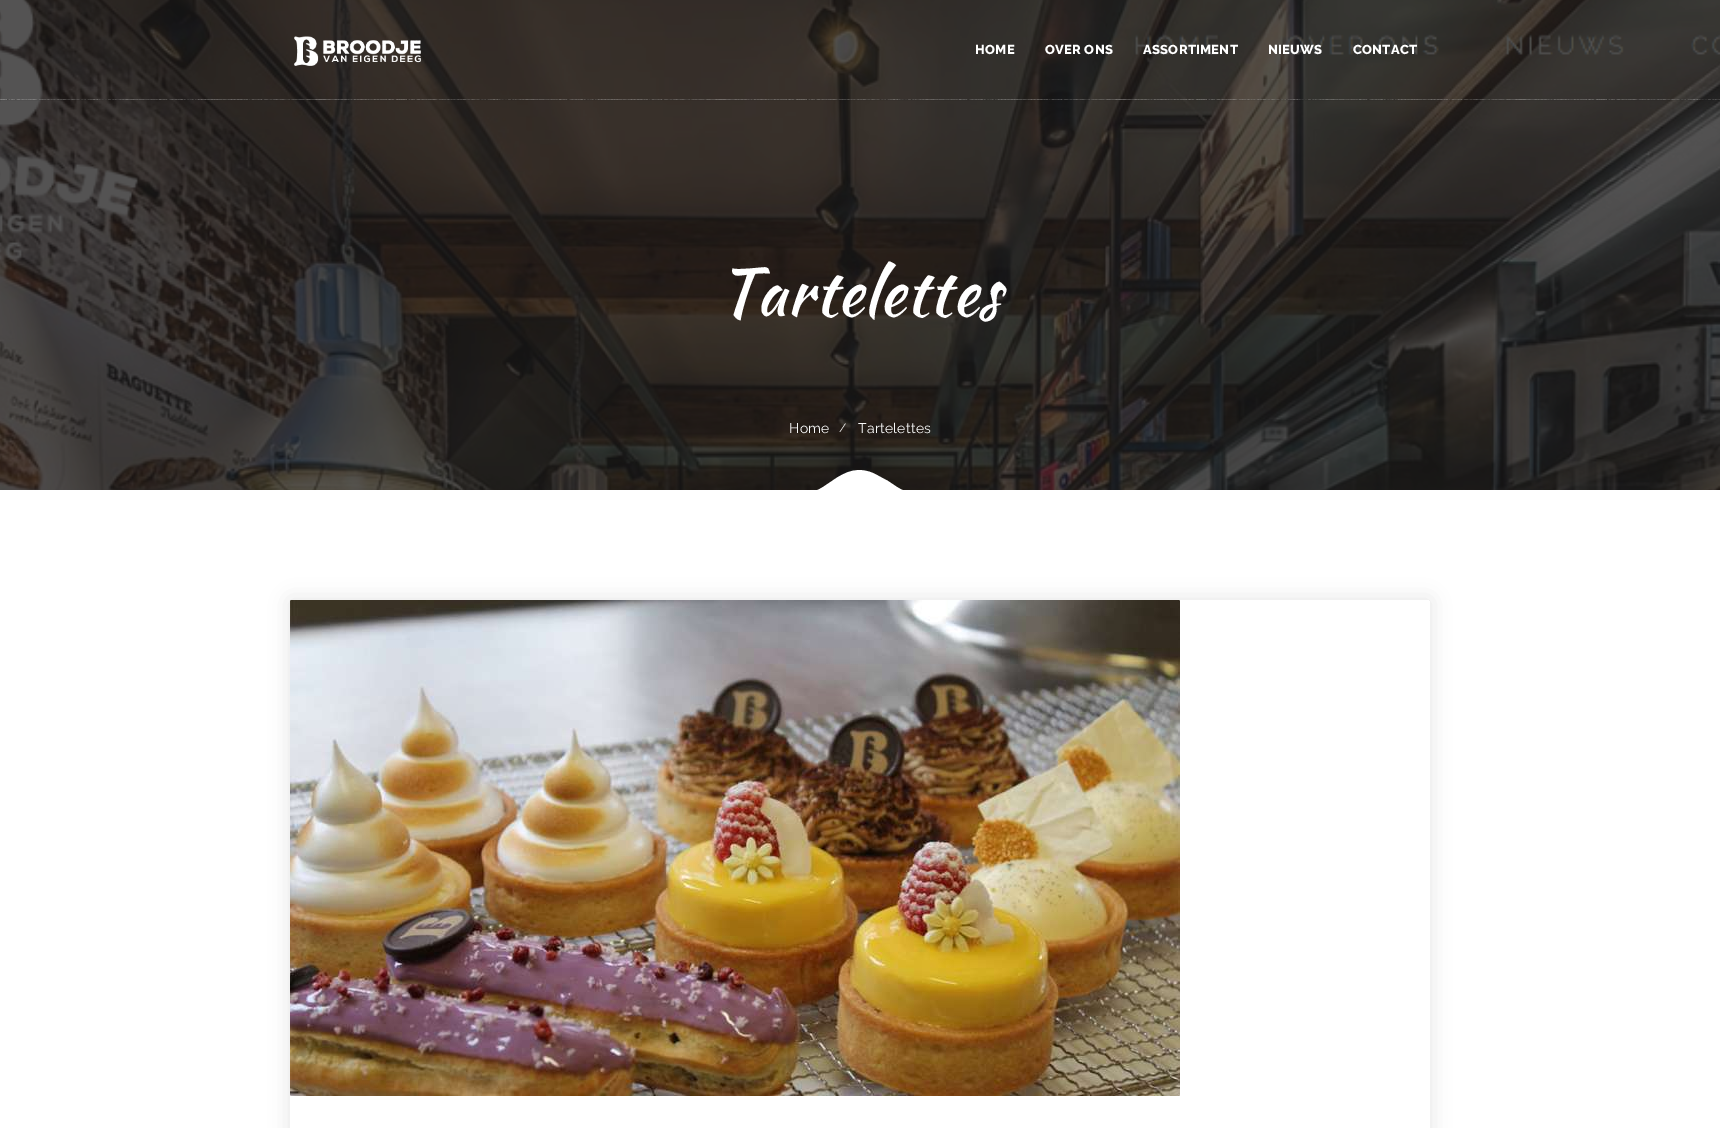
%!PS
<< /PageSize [1720 1128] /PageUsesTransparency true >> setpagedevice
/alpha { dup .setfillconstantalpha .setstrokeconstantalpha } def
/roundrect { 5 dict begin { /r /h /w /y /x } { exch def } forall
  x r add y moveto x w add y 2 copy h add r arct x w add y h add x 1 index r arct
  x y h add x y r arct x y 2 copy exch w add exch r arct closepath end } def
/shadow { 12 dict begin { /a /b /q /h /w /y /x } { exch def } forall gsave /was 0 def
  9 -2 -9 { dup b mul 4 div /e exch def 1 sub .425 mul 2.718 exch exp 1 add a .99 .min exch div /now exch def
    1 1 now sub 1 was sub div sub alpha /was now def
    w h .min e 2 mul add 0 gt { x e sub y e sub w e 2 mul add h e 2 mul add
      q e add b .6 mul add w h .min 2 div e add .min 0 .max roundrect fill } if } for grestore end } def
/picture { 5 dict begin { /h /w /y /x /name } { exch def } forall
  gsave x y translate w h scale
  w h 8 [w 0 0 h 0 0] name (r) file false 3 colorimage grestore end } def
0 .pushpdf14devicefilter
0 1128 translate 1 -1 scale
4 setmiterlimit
1 setgray
0 0 1720 1128 rectfill
(img3.rgb) 0 0 1720 490 picture
(img1.rgb) 294 36 127 30 picture
/Raleway-ExtraBold [13 0 0 -13 0 0] selectfont
975 54 moveto 0.25 0 (HOME) ashow
1045 54 moveto 0.25 0 (OVER ONS) ashow
1143 54 moveto 0.25 0 (ASSORTIMENT) ashow
1268 54 moveto 0.25 0 (NIEUWS) ashow
1353 54 moveto 0.25 0 (CONTACT) ashow
(img2.rgb) 0 99 1720 2 picture
/KaushanScript-Regular [65 0 0 -65 0 0] selectfont
718 315 moveto 0.25 0 (Tartelettes) ashow
/Raleway-Regular [14 0 0 -14 0 0] selectfont
0.976 setgray
789 433 moveto 0.25 0 (Home) ashow
/Raleway-Regular [12 0 0 -12 0 0] selectfont
839 432 moveto 0.25 0 (/) ashow
/Raleway-Regular [14 0 0 -14 0 0] selectfont
858 433 moveto 0.25 0 (Tartelettes) ashow
gsave
815 469 90 21 rectclip
1 setgray
newpath 905 491 moveto 815 491 lineto 821 489 826 485 832 481 curveto 846 471 859 466 875 474 curveto 888 481 lineto 894 485 899 489 905 491 curveto closepath fill
grestore
gsave
newpath 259 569 moveto 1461 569 lineto 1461 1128 lineto 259 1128 lineto closepath 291 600 moveto 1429 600 lineto 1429.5 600 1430 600.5 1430 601 curveto 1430 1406 lineto 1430 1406.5 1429.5 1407 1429 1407 curveto 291 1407 lineto 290.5 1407 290 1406.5 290 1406 curveto 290 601 lineto 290 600.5 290.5 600 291 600 curveto closepath eoclip newpath
0.157 setgray
290 600 1140 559 1 10 0.12 shadow
grestore
(img4.rgb) 290 600 890 496 picture
.poppdf14devicefilter showpage
